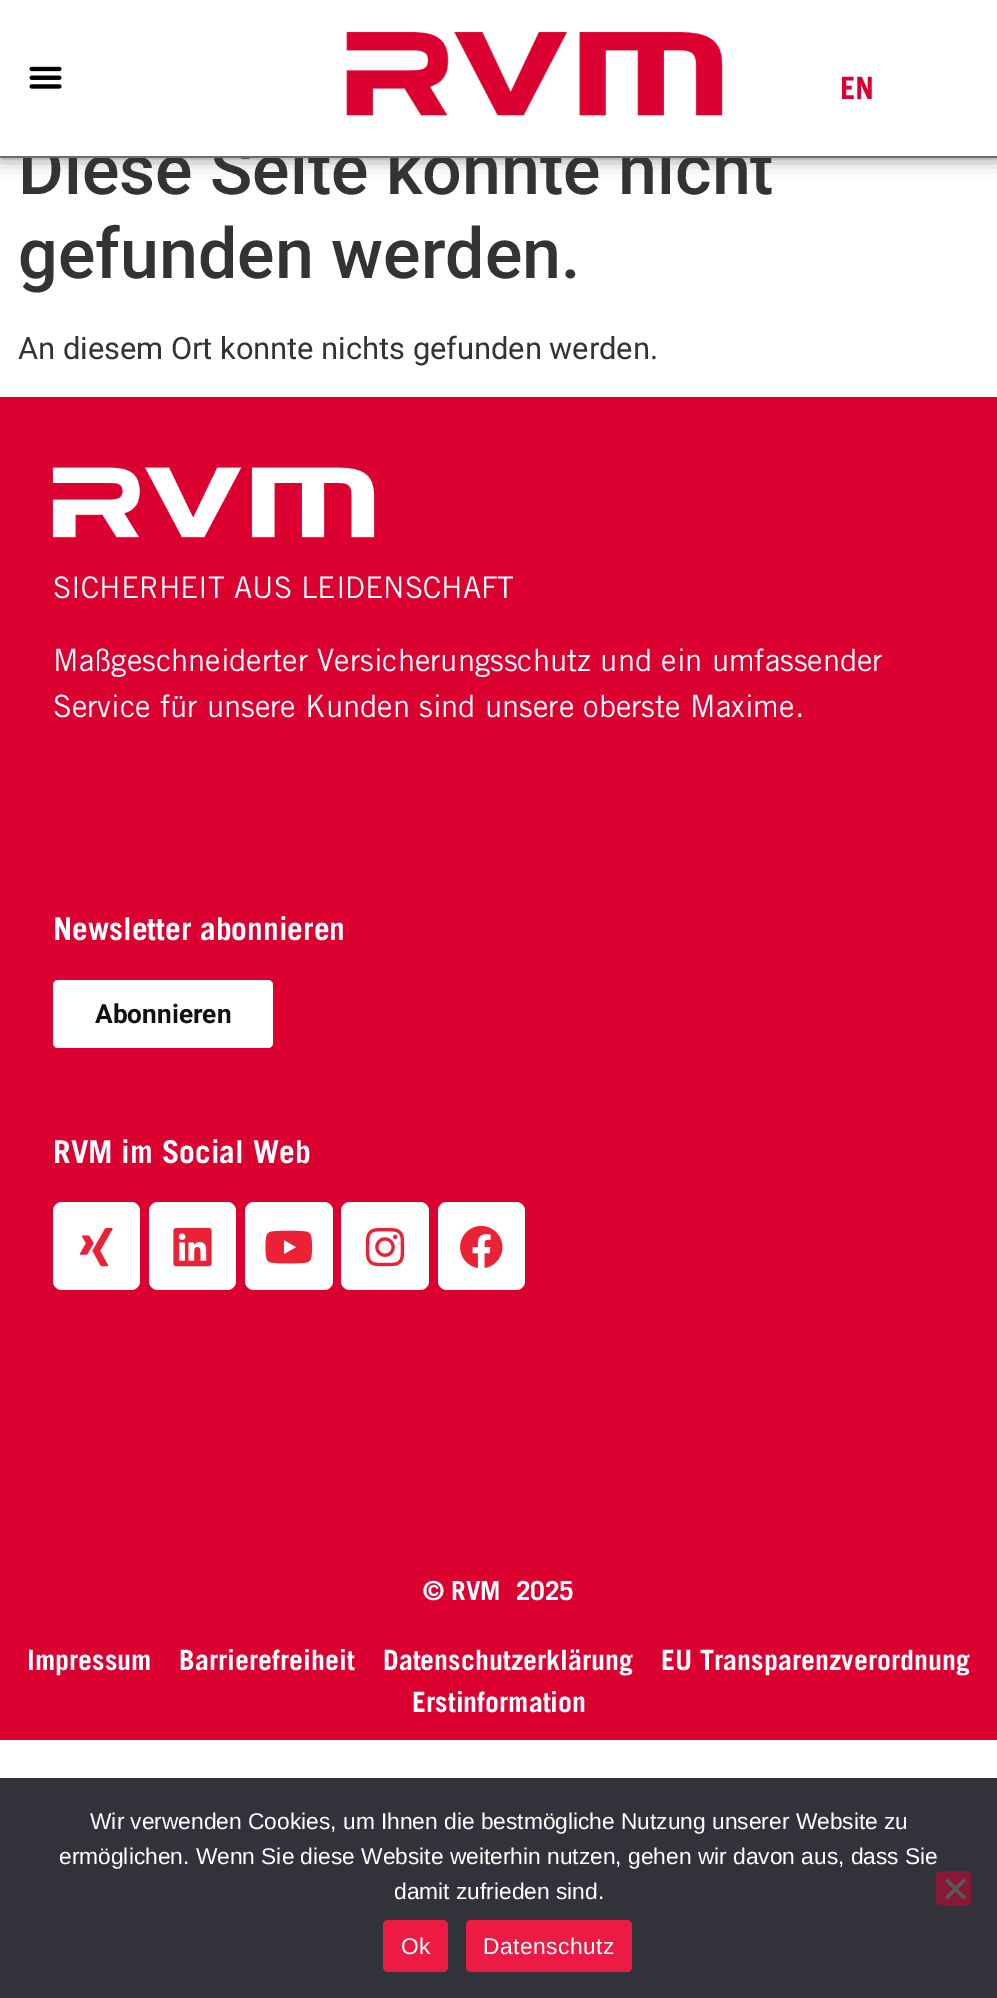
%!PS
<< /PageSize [997 1998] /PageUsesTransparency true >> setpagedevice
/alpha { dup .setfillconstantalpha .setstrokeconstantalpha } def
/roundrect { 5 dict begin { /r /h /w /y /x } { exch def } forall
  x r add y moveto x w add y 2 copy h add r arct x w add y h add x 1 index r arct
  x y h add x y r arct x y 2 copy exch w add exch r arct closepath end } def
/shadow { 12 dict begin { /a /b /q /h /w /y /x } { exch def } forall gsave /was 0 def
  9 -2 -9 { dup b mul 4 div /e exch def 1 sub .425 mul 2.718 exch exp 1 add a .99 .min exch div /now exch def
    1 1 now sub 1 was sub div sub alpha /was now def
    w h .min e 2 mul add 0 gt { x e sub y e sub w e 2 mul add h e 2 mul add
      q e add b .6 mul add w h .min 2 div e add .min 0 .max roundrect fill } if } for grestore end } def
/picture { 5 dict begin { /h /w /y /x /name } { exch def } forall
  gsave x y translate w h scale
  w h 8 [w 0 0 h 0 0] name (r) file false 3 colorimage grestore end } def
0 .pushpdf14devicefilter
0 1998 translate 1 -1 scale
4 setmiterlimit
1 setgray
0 0 997 1998 rectfill
0 setgray
0 0 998 158 0 9 0.5 shadow
/Roboto-Medium [70 0 0 -70 0 0] selectfont
0.2 setgray
18 194 moveto (Diese Seite konnte nicht) show
0.424 setgray
0 156 997 2 rectfill
1 setgray
0 0 997 156 rectfill
(img1.rgb) 29 66 33 23 picture
(img2.rgb) 346 32 377 84 picture
/tradeGothic-Bold [30.8 0 0 -30.8 0 0] selectfont
0.863 0 0.192 setrgbcolor
840 99 moveto (EN) show
/Roboto-Medium [70 0 0 -70 0 0] selectfont
0.2 setgray
18 278 moveto (gefunden werden.) show
/Roboto-Regular [30.8 0 0 -30.8 0 0] selectfont
18 359 moveto (An diesem Ort konnte nichts gefunden werden.) show
0.863 0 0.192 setrgbcolor
0 397 997 1343 rectfill
(img3.rgb) 52 467 323 71 picture
/tradeGothic-Regular [29.75 0 0 -29.75 0 0] selectfont
1 setgray
53 598 moveto (SICHERHEIT AUS LEIDENSCHAFT) show
/tradeGothic-Regular [30.8 0 0 -30.8 0 0] selectfont
53 671 moveto (Maßgeschneiderter Versicherungsschutz und ein umfassender) show
53 717 moveto (Service für unsere Kunden sind unsere oberste Maxime.) show
/tradeGothic-Bold [31.5 0 0 -31.5 0 0] selectfont
53 940 moveto (Newsletter abonnieren) show
53 980 220 68 5 roundrect fill
/Roboto-Bold [26.25 0 0 -26.25 0 0] selectfont
0.067 setgray
95 1023 moveto (Abonnieren) show
/tradeGothic-Bold [31.5 0 0 -31.5 0 0] selectfont
1 setgray
53 1163 moveto (RVM im Social Web) show
53 1202 87 88 9 roundrect fill
(img4.rgb) 79 1227 34 40 picture
149 1202 87 88 9 roundrect fill
(img5.rgb) 173 1227 39 40 picture
245 1202 88 88 9 roundrect fill
(img6.rgb) 265 1230 48 34 picture
341 1202 88 88 9 roundrect fill
(img7.rgb) 365 1227 40 40 picture
438 1202 87 88 9 roundrect fill
(img8.rgb) 460 1225 43 43 picture
/tradeGothic-Bold [26.25 0 0 -26.25 0 0] selectfont
423 1600 moveto (© RVM  2025) show
/tradeGothic-Bold [28 0 0 -28 0 0] selectfont
27 1670 moveto (Impressum) show
179 1670 moveto (Barrierefreiheit) show
383 1670 moveto (Datenschutzerklärung) show
661 1670 moveto (EU Transparenzverordnung) show
412 1712 moveto (Erstinformation) show
0.196 0.196 0.227 setrgbcolor
0 1778 997 220 rectfill
/LiberationSans-Regular [22.75 0 0 -22.75 0 0] selectfont
1 setgray
90 1829 moveto (Wir verwenden Cookies, um Ihnen die bestmögliche Nutzung unserer Website zu) show
59 1864 moveto (ermöglichen. Wenn Sie diese Website weiterhin nutzen, gehen wir davon aus, dass Sie) show
394 1899 moveto (damit zufrieden sind.) show
0.529 0.098 0.212 setrgbcolor
936 1871 35 35 5 roundrect fill
0.349 0.349 0.365 setrgbcolor
newpath 963.5 1878.5 moveto 966 1881 lineto 947.5 1899.5 lineto 945 1897 lineto closepath fill
newpath 945 1881 moveto 947.5 1878.5 lineto 966 1897 lineto 963.5 1899.5 lineto closepath fill
0.925 0.106 0.267 setrgbcolor
383 1920 65 52 5 roundrect fill
1 setgray
401 1954 moveto 0.5 0 (Ok) ashow
0.925 0.106 0.267 setrgbcolor
466 1920 166 52 5 roundrect fill
1 setgray
483 1954 moveto 0.5 0 (Datenschutz) ashow
.poppdf14devicefilter showpage
